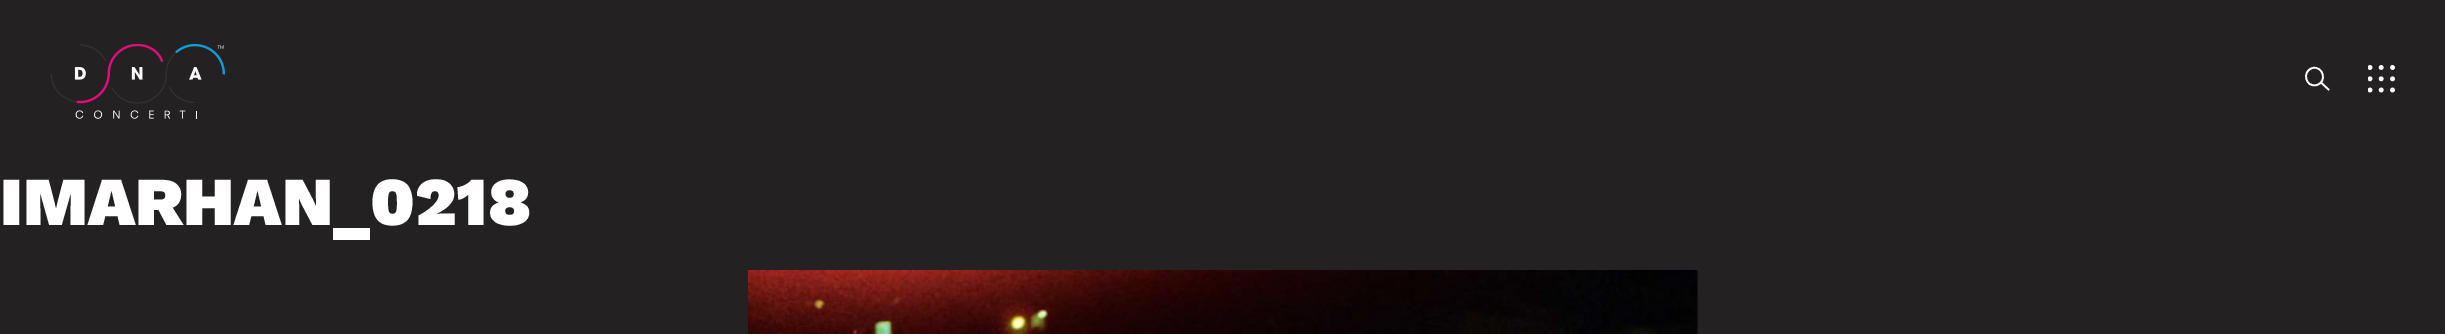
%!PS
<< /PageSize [2445 334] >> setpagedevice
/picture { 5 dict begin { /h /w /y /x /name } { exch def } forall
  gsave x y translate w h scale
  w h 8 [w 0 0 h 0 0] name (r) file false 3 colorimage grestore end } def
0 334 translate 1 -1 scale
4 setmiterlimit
0.141 0.129 0.133 setrgbcolor
0 0 2445 334 rectfill
(img1.rgb) 50 44 175 60 picture
(img2.rgb) 74 44 151 75 picture
1 setgray
1.7 setlinewidth
newpath 2312.5 68 moveto 2323.5 65.5 2327.5 82.5 2316.5 85 curveto 2305.5 88 2301.5 71 2312.5 68 curveto closepath 2321 82.5 moveto 2329 90 lineto stroke
(img3.rgb) 2368 65 27 28 picture
/WorkSans-Black [68.5 0 0 -68.5 0 0] selectfont
0 225 moveto (IMARHAN_0218) show
(img4.rgb) 748 270 950 64 picture
showpage
